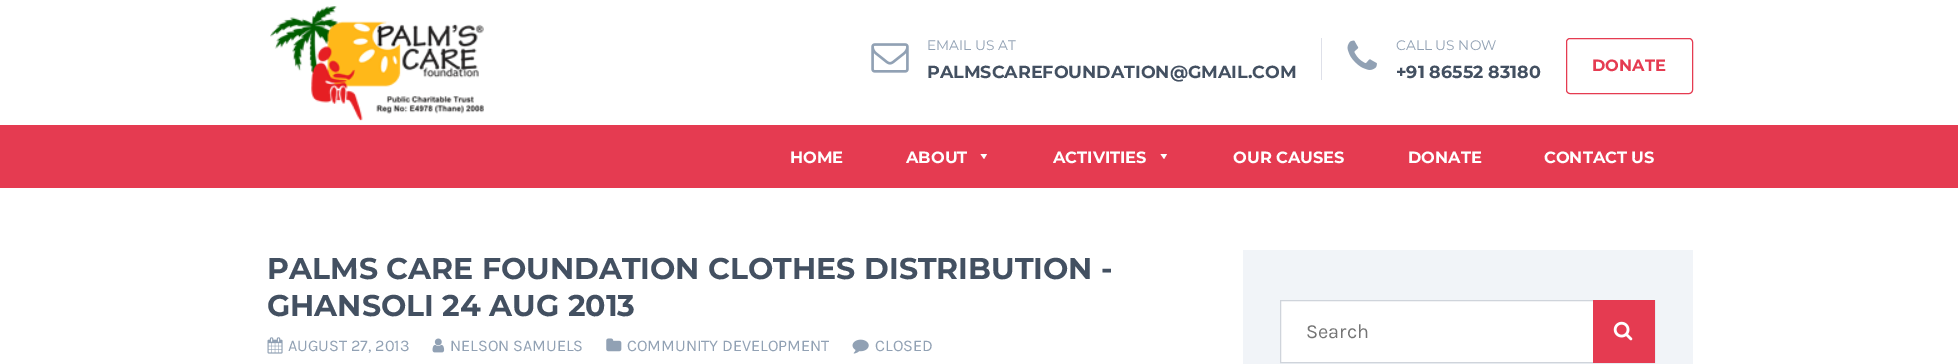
%!PS
<< /PageSize [1958 364] >> setpagedevice
/roundrect { 5 dict begin { /r /h /w /y /x } { exch def } forall
  x r add y moveto x w add y 2 copy h add r arct x w add y h add x 1 index r arct
  x y h add x y r arct x y 2 copy exch w add exch r arct closepath end } def
/picture { 5 dict begin { /h /w /y /x /name } { exch def } forall
  gsave x y translate w h scale
  w h 8 [w 0 0 h 0 0] name (r) file false 3 colorimage grestore end } def
0 364 translate 1 -1 scale
4 setmiterlimit
1 setgray
0 0 1958 364 rectfill
(img1.rgb) 270 6 214 115 picture
(img2.rgb) 871 43 38 30 picture
/Montserrat-Regular [13.75 0 0 -13.75 0 0] selectfont
0.569 0.631 0.706 setrgbcolor
927 50 moveto (EMAIL US AT) show
/Montserrat-Bold [17.5 0 0 -17.5 0 0] selectfont
0.263 0.314 0.38 setrgbcolor
927 78 moveto (PALMSCAREFOUNDATION@GMAIL.COM) show
0.871 0.878 0.914 setrgbcolor
1321 38 1 42 rectfill
(img3.rgb) 1347 40 30 30 picture
/Montserrat-Regular [13.75 0 0 -13.75 0 0] selectfont
0.569 0.631 0.706 setrgbcolor
1396 50 moveto (CALL US NOW) show
/Montserrat-Bold [17.5 0 0 -17.5 0 0] selectfont
0.263 0.314 0.38 setrgbcolor
1396 78 moveto (+91 86552 83180) show
0.898 0.231 0.318 setrgbcolor
1566.5 38.5 126 55 3.5 roundrect stroke
/Montserrat-Bold [16.25 0 0 -16.25 0 0] selectfont
1592 71 moveto (DONATE) show
0 125 1958 63 rectfill
1 setgray
790 163 moveto (HOME) show
906 163 moveto (ABOUT) show
newpath 987 154 moveto 984 159 lineto 980.5 154 lineto closepath fill
1053 163 moveto (ACTIVITIES) show
newpath 1167 154 moveto 1164 159 lineto 1160.5 154 lineto closepath fill
1233 163 moveto (OUR CAUSES) show
1408 163 moveto (DONATE) show
1544 163 moveto (CONTACT US) show
/Montserrat-Bold [30 0 0 -30 0 0] selectfont
0.263 0.314 0.38 setrgbcolor
267 279 moveto (PALMS CARE FOUNDATION CLOTHES DISTRIBUTION -) show
267 316 moveto (GHANSOLI 24 AUG 2013) show
(img4.rgb) 267 337 16 17 picture
/Karla-Regular [16.25 0 0 -16.25 0 0] selectfont
0.569 0.631 0.706 setrgbcolor
288 351 moveto (AUGUST 27, 2013) show
(img5.rgb) 432 338 13 15 picture
450 351 moveto (NELSON SAMUELS) show
(img6.rgb) 606 338 16 14 picture
627 351 moveto (COMMUNITY DEVELOPMENT) show
(img7.rgb) 852 339 17 15 picture
875 351 moveto (CLOSED) show
0.945 0.957 0.973 setrgbcolor
1243 250 450 114 rectfill
1 setgray
1281 301 312 61 rectfill
0.812 0.831 0.859 setrgbcolor
1280.5 300.5 374 62 rectstroke
/Karla-Regular [20 0 0 -20 0 0] selectfont
0.459 setgray
1306 338 moveto (Search) show
0.898 0.231 0.318 setrgbcolor
1593 300 62 63 rectfill
(img8.rgb) 1613 321 20 20 picture
showpage
